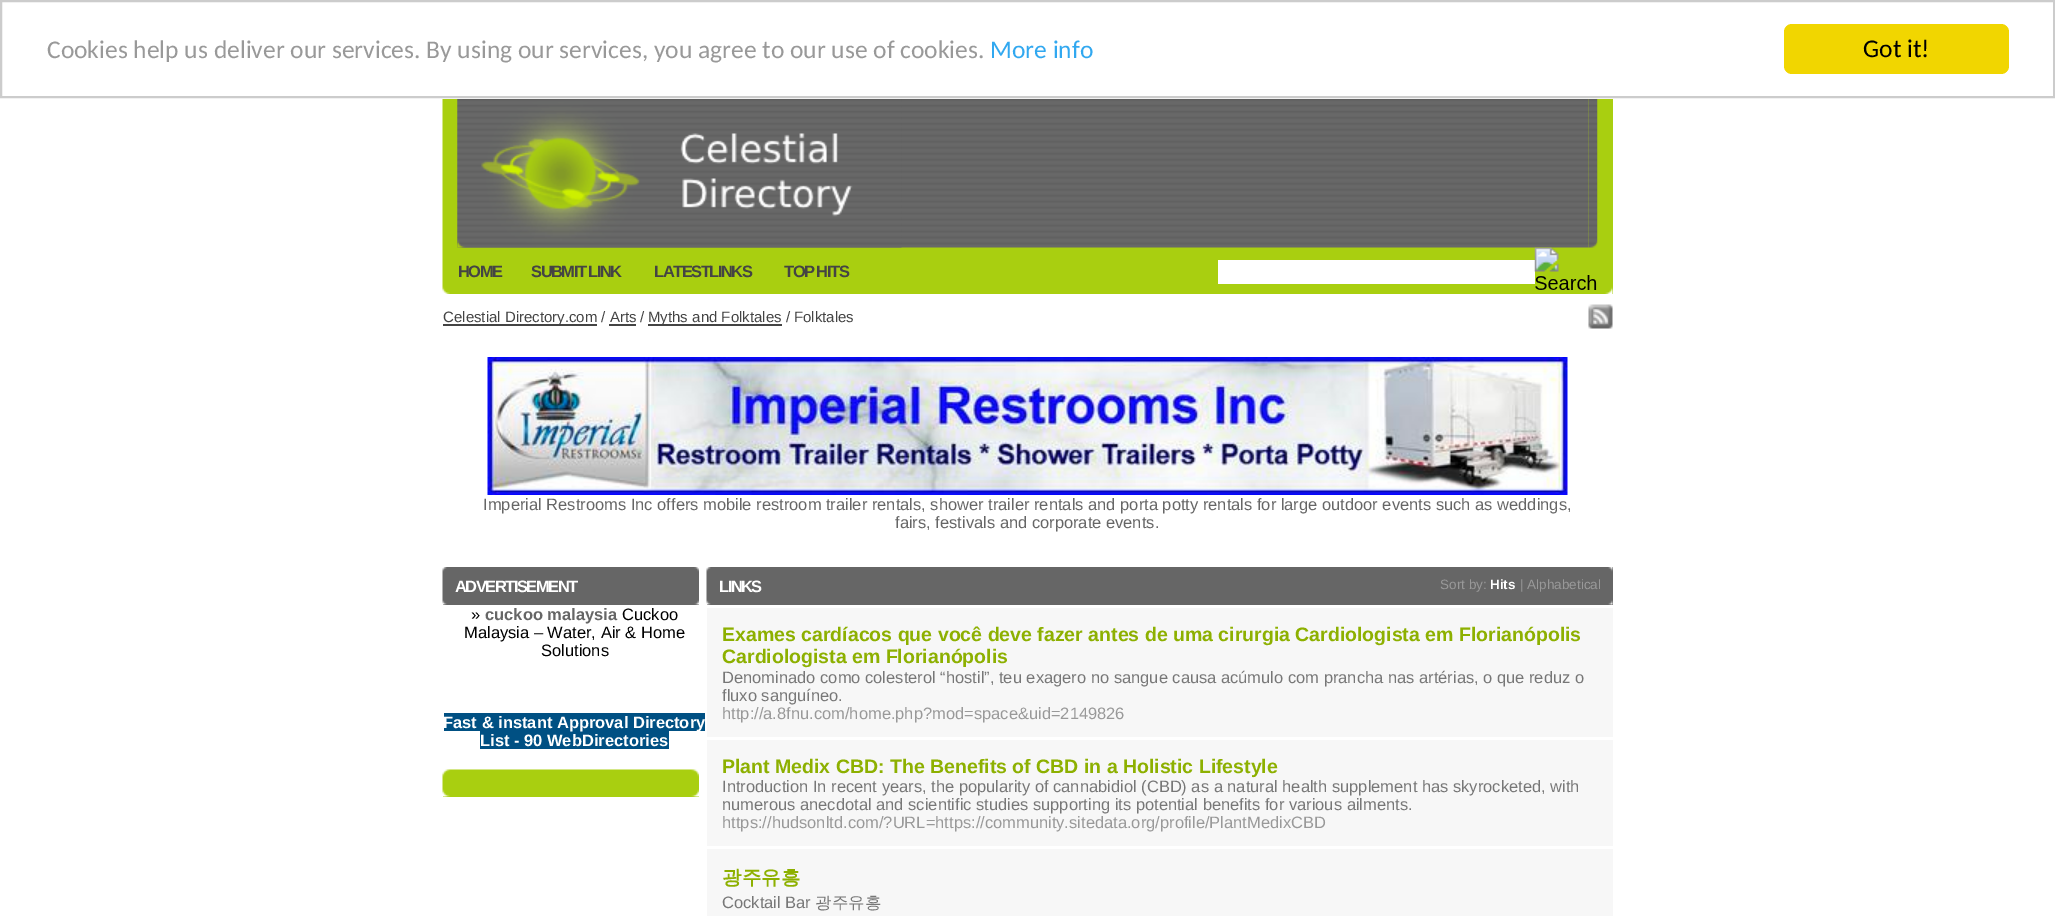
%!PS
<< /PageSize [2055 916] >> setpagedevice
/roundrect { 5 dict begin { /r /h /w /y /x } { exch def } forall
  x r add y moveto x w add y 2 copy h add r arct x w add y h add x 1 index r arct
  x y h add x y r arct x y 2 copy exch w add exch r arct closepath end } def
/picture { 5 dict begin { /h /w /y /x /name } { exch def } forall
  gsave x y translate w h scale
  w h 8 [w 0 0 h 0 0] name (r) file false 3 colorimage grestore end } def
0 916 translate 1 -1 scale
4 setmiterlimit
1 setgray
0 0 2055 916 rectfill
0.8 setgray
2 setlinewidth
1 1 2053 96 rectstroke
/Carlito-Regular [25.5 0 0 -25.5 0 0] selectfont
0.6 setgray
47 58 moveto (Cookies help us deliver our services. By using our services, you agree to our use of cookies.) show
0.192 0.659 0.941 setrgbcolor
990 58 moveto (More info) show
0.945 0.839 0 setrgbcolor
1784 24 225 50 8 roundrect fill
0 setgray
1863 57 moveto (Got it!) show
0.663 0.812 0.063 setrgbcolor
450 99 1163 195 rectfill
(img1.rgb) 442 99 8 195 picture
(img2.rgb) 457 99 1132 149 picture
(img3.rgb) 457 99 445 149 picture
(img4.rgb) 1588 99 10 149 picture
(img5.rgb) 1597 99 16 195 picture
/LiberationSans-Bold [16.5 0 0 -16.5 0 0] selectfont
0.267 setgray
458 277 moveto -1.5 0 (HOME) ashow
531 277 moveto -1.5 0 (SUBMIT LINK) ashow
654 277 moveto -1.5 0 (LATESTLINKS) ashow
784 277 moveto -1.5 0 (TOP HITS) ashow
1 setgray
1218 260 317 24 rectfill
(img6.rgb) 1534 247 63 43 picture
0.267 setgray
443 324 154 2 rectfill
/LiberationSans-Regular [15 0 0 -15 0 0] selectfont
443 322 moveto (Celestial Directory.com / Arts /) show
648 324 134 2 rectfill
648 322 moveto (Myths and Folktales / Folktales) show
609 324 27 2 rectfill
(img7.rgb) 1588 304 25 25 picture
(img8.rgb) 487 357 1081 138 picture
/LiberationSans-Regular [16.5 0 0 -16.5 0 0] selectfont
0.4 setgray
483 510 moveto (Imperial Restrooms Inc offers mobile restroom trailer rentals, shower trailer rentals and porta potty rentals for large outdoor events such as weddings,) show
895 528 moveto (fairs, festivals and corporate events.) show
443 567 256 38 rectfill
(img9.rgb) 442 567 5 38 picture
/LiberationSans-Bold [16.5 0 0 -16.5 0 0] selectfont
1 setgray
455 592 moveto -1.5 0 (ADVERTISEMENT) ashow
(img10.rgb) 694 567 5 38 picture
/LiberationSans-Regular [16.5 0 0 -16.5 0 0] selectfont
0 setgray
471 620 moveto (») show
/LiberationSans-Bold [16.5 0 0 -16.5 0 0] selectfont
0.4 setgray
485 620 moveto (cuckoo malaysia) show
/LiberationSans-Regular [16.5 0 0 -16.5 0 0] selectfont
0 setgray
622 620 moveto (Cuckoo) show
464 638 moveto (Malaysia – Water, Air & Home) show
541 656 moveto (Solutions) show
0 0.314 0.514 setrgbcolor
444 713 261 18 rectfill
480 731 189 18 rectfill
/LiberationSans-Bold [16.5 0 0 -16.5 0 0] selectfont
1 setgray
443 728 moveto (Fast & instant Approval Directory) show
480 746 moveto (List - 90 WebDirectories) show
0.663 0.812 0.063 setrgbcolor
443 796 256 1 rectfill
(img11.rgb) 442 769 257 14 picture
(img12.rgb) 442 783 257 14 picture
0.4 setgray
707 567 906 38 rectfill
(img9.rgb) 706 567 5 38 picture
1 setgray
719 592 moveto -1.5 0 (LINKS) ashow
/LiberationSans-Regular [13.5 0 0 -13.5 0 0] selectfont
0.6 setgray
1440 589 moveto (Sort by:) show
/LiberationSans-Bold [13.5 0 0 -13.5 0 0] selectfont
1 setgray
1490 589 moveto (Hits) show
/LiberationSans-Regular [13.5 0 0 -13.5 0 0] selectfont
0.6 setgray
1520 589 moveto (| Alphabetical) show
(img13.rgb) 1608 567 5 38 picture
0.969 setgray
707 608 906 129 rectfill
/LiberationSans-Bold [19.5 0 0 -19.5 0 0] selectfont
0.553 0.69 0 setrgbcolor
722 641 moveto (Exames cardíacos que você deve fazer antes de uma cirurgia Cardiologista em Florianópolis) show
722 663 moveto (Cardiologista em Florianópolis) show
/LiberationSans-Regular [16.5 0 0 -16.5 0 0] selectfont
0.467 setgray
722 683 moveto (Denominado como colesterol “hostil”, teu exagero no sangue causa acúmulo com prancha nas artérias, o que reduz o) show
722 701 moveto (fluxo sanguíneo.) show
0.6 setgray
722 719 moveto (http://a.8fnu.com/home.php?mod=space&uid=2149826) show
0.969 setgray
707 740 906 106 rectfill
/LiberationSans-Bold [19.5 0 0 -19.5 0 0] selectfont
0.553 0.69 0 setrgbcolor
722 773 moveto (Plant Medix CBD: The Benefits of CBD in a Holistic Lifestyle) show
/LiberationSans-Regular [16.5 0 0 -16.5 0 0] selectfont
0.467 setgray
722 792 moveto (Introduction In recent years, the popularity of cannabidiol \(CBD\) as a natural health supplement has skyrocketed, with) show
722 810 moveto (numerous anecdotal and scientific studies supporting its potential benefits for various ailments.) show
0.6 setgray
722 828 moveto (https://hudsonltd.com/?URL=https://community.sitedata.org/profile/PlantMedixCBD) show
0.969 setgray
707 849 906 67 rectfill
/WenQuanYiZenHei-Bold [19.5 0 0 -19.5 0 0] selectfont
0.553 0.69 0 setrgbcolor
722 884 moveto (광주유흥) show
/LiberationSans-Regular [16.5 0 0 -16.5 0 0] selectfont
0.467 setgray
722 908 moveto (Cocktail Bar) show
/WenQuanYiZenHei-Medium [16.5 0 0 -16.5 0 0] selectfont
815 908 moveto (광주유흥) show
showpage
